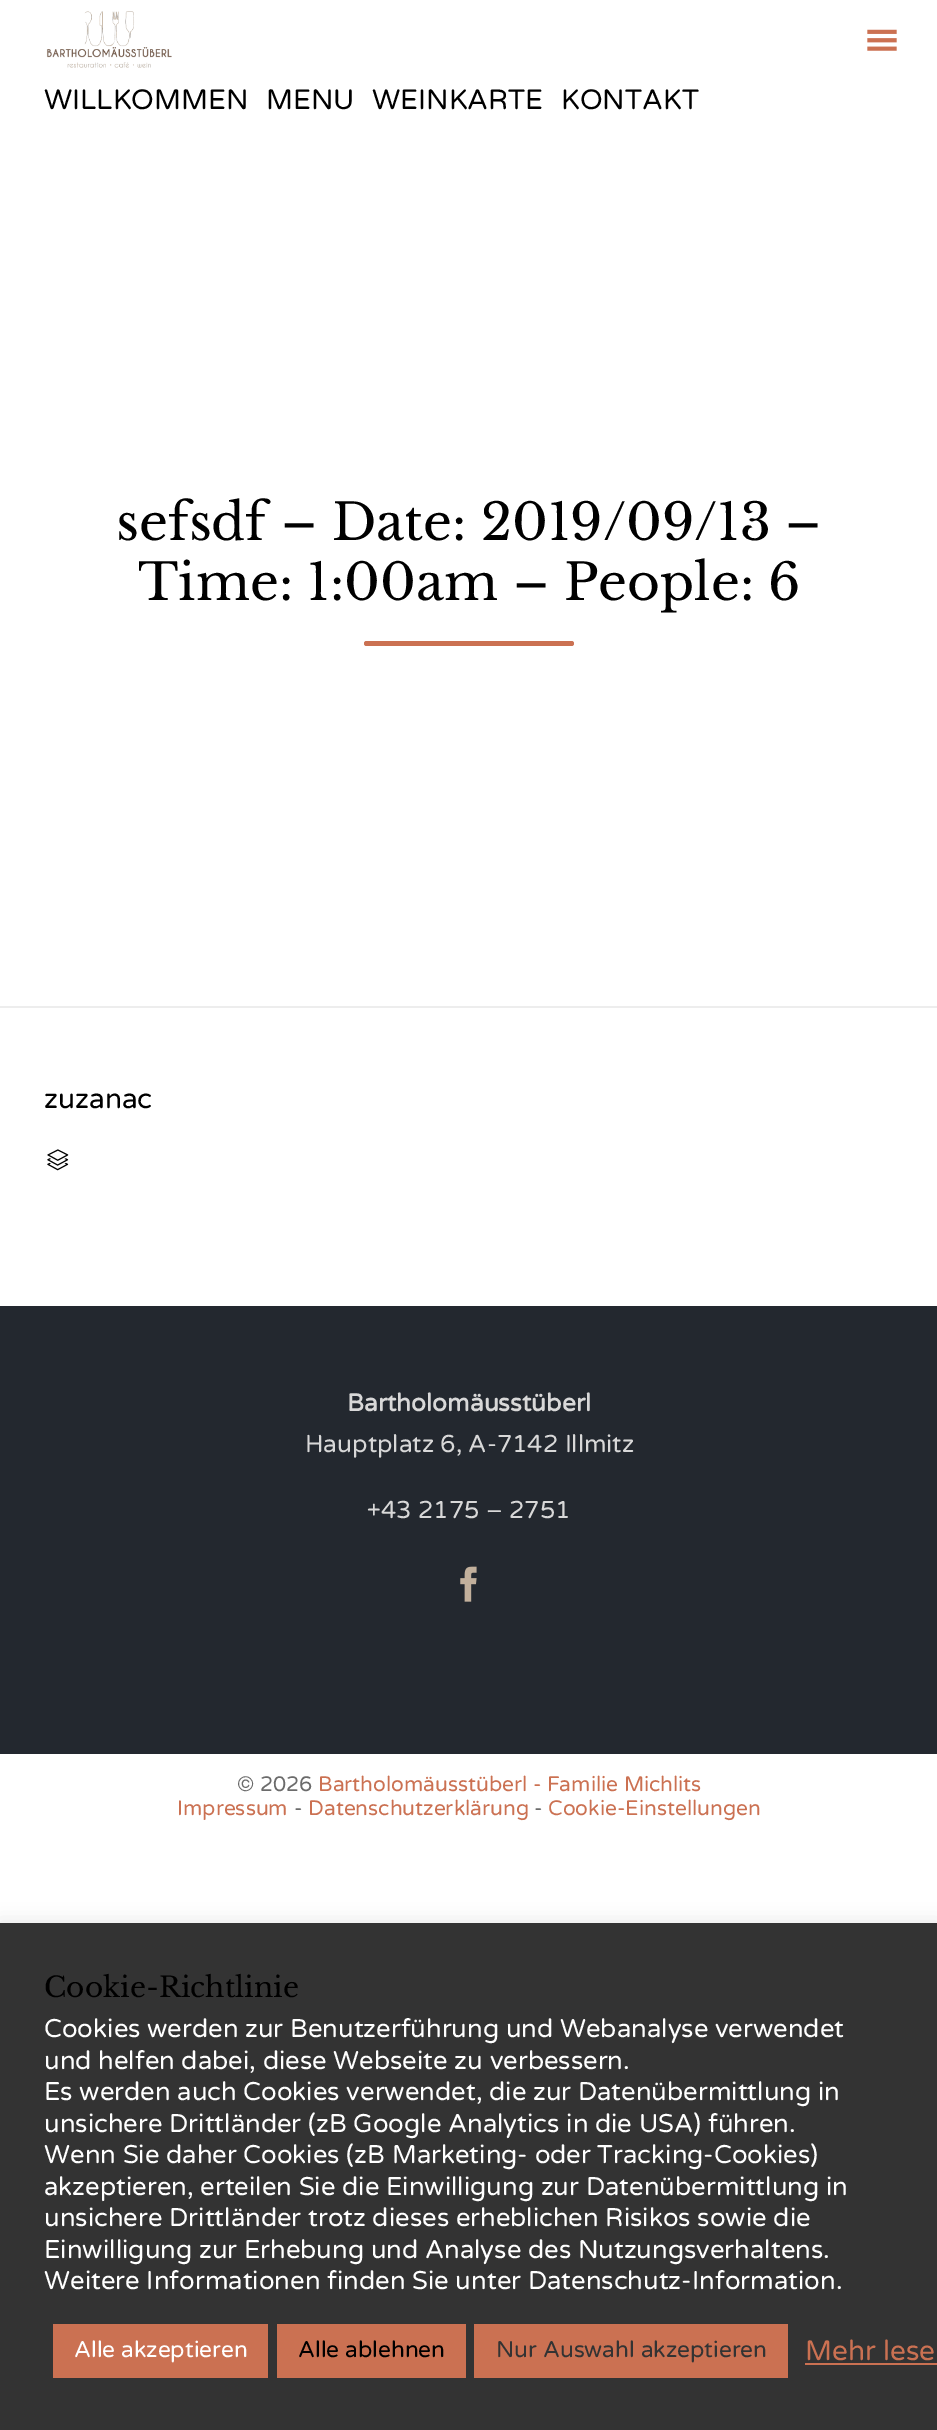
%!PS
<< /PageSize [937 2430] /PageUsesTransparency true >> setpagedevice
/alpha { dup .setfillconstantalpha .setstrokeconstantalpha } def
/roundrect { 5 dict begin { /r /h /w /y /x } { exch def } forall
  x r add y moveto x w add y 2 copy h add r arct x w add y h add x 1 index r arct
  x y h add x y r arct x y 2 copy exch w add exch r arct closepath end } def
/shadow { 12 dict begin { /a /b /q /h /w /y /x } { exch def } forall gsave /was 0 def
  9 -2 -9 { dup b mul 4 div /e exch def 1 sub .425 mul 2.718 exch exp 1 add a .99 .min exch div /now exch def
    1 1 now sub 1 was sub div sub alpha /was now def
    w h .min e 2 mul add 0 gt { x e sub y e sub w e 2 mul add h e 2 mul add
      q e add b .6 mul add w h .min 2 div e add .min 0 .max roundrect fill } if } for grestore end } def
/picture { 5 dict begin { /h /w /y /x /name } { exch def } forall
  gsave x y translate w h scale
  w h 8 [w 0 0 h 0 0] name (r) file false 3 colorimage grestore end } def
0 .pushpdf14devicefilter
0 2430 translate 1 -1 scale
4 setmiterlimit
1 setgray
0 0 937 2430 rectfill
(img1.rgb) 46 11 126 57 picture
(img2.rgb) 867 29 30 22 picture
/VarelaRound-Regular [28 0 0 -28 0 0] selectfont
0 setgray
44 109 moveto (WILLKOMMEN) show
266 109 moveto (MENU) show
372 109 moveto (WEINKARTE) show
561 109 moveto (KONTAKT) show
0.929 setgray
0 1006 937 2 rectfill
/LibreBaskerville-Regular [50.4 0 0 -50.4 0 0] selectfont
0 setgray
116 540 moveto (sefsdf – Date: 2019/09/13 –) show
138 600 moveto (Time: 1:00am – People: 6) show
0.796 0.443 0.322 setrgbcolor
364 641 210 5 2.5 roundrect fill
/VarelaRound-Regular [28 0 0 -28 0 0] selectfont
0 setgray
44 1108 moveto (zuzanac) show
(img3.rgb) 47 1149 22 22 picture
0.137 0.157 0.184 setrgbcolor
0 1306 937 448 rectfill
/VarelaRound-Bold [24.5 0 0 -24.5 0 0] selectfont
0.847 setgray
347 1411 moveto (Bartholomäusstüberl) show
/VarelaRound-Regular [24.5 0 0 -24.5 0 0] selectfont
305 1452 moveto (Hauptplatz 6, A-7142 Illmitz) show
367 1518 moveto (+43 2175 – 2751) show
(img4.rgb) 460 1566 17 36 picture
/VarelaRound-Regular [21 0 0 -21 0 0] selectfont
0.42 setgray
237 1791 moveto (© 2026) show
0.796 0.443 0.322 setrgbcolor
318 1791 moveto (Bartholomäusstüberl - Familie Michlits) show
177 1815 moveto (Impressum) show
0.42 setgray
294 1815 moveto (-) show
0.796 0.443 0.322 setrgbcolor
308 1815 moveto (Datenschutzerklärung) show
0.42 setgray
534 1815 moveto (-) show
0.796 0.443 0.322 setrgbcolor
548 1815 moveto (Cookie-Einstellungen) show
0.675 0.671 0.671 setrgbcolor
0 1922 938 507 0 9 0.3 shadow
0.2 setgray
0 1923 937 507 rectfill
/LibreBaskerville-Regular [28 0 0 -28 0 0] selectfont
0 setgray
44 1997 moveto (Cookie-Richtlinie) show
/VarelaRound-Regular [25.7 0 0 -25.7 0 0] selectfont
1 setgray
44 2037 moveto (Cookies werden zur Benutzerführung und Webanalyse verwendet) show
44 2069 moveto (und helfen dabei, diese Webseite zu verbessern.) show
44 2100 moveto (Es werden auch Cookies verwendet, die zur Datenübermittlung in) show
44 2132 moveto (unsichere Drittländer \(zB Google Analytics in die USA\) führen.) show
44 2163 moveto (Wenn Sie daher Cookies \(zB Marketing- oder Tracking-Cookies\)) show
44 2195 moveto (akzeptieren, erteilen Sie die Einwilligung zur Datenübermittlung in) show
44 2226 moveto (unsichere Drittländer trotz dieses erheblichen Risikos sowie die) show
44 2258 moveto (Einwilligung zur Erhebung und Analyse des Nutzungsverhaltens.) show
44 2289 moveto (Weitere Informationen finden Sie unter Datenschutz-Information.) show
0.796 0.443 0.322 setrgbcolor
53 2324 215 54 rectfill
/VarelaRound-Regular [22.75 0 0 -22.75 0 0] selectfont
1 setgray
74 2357 moveto (Alle akzeptieren) show
0.796 0.443 0.322 setrgbcolor
277 2324 189 54 rectfill
0 setgray
298 2357 moveto (Alle ablehnen) show
0.796 0.443 0.322 setrgbcolor
474 2324 314 54 rectfill
0.2 setgray
496 2357 moveto (Nur Auswahl akzeptieren) show
/VarelaRound-Regular [28 0 0 -28 0 0] selectfont
0.796 0.443 0.322 setrgbcolor
805 2360 moveto (Mehr lese) show
805 2363 132 2 rectfill
.poppdf14devicefilter showpage
